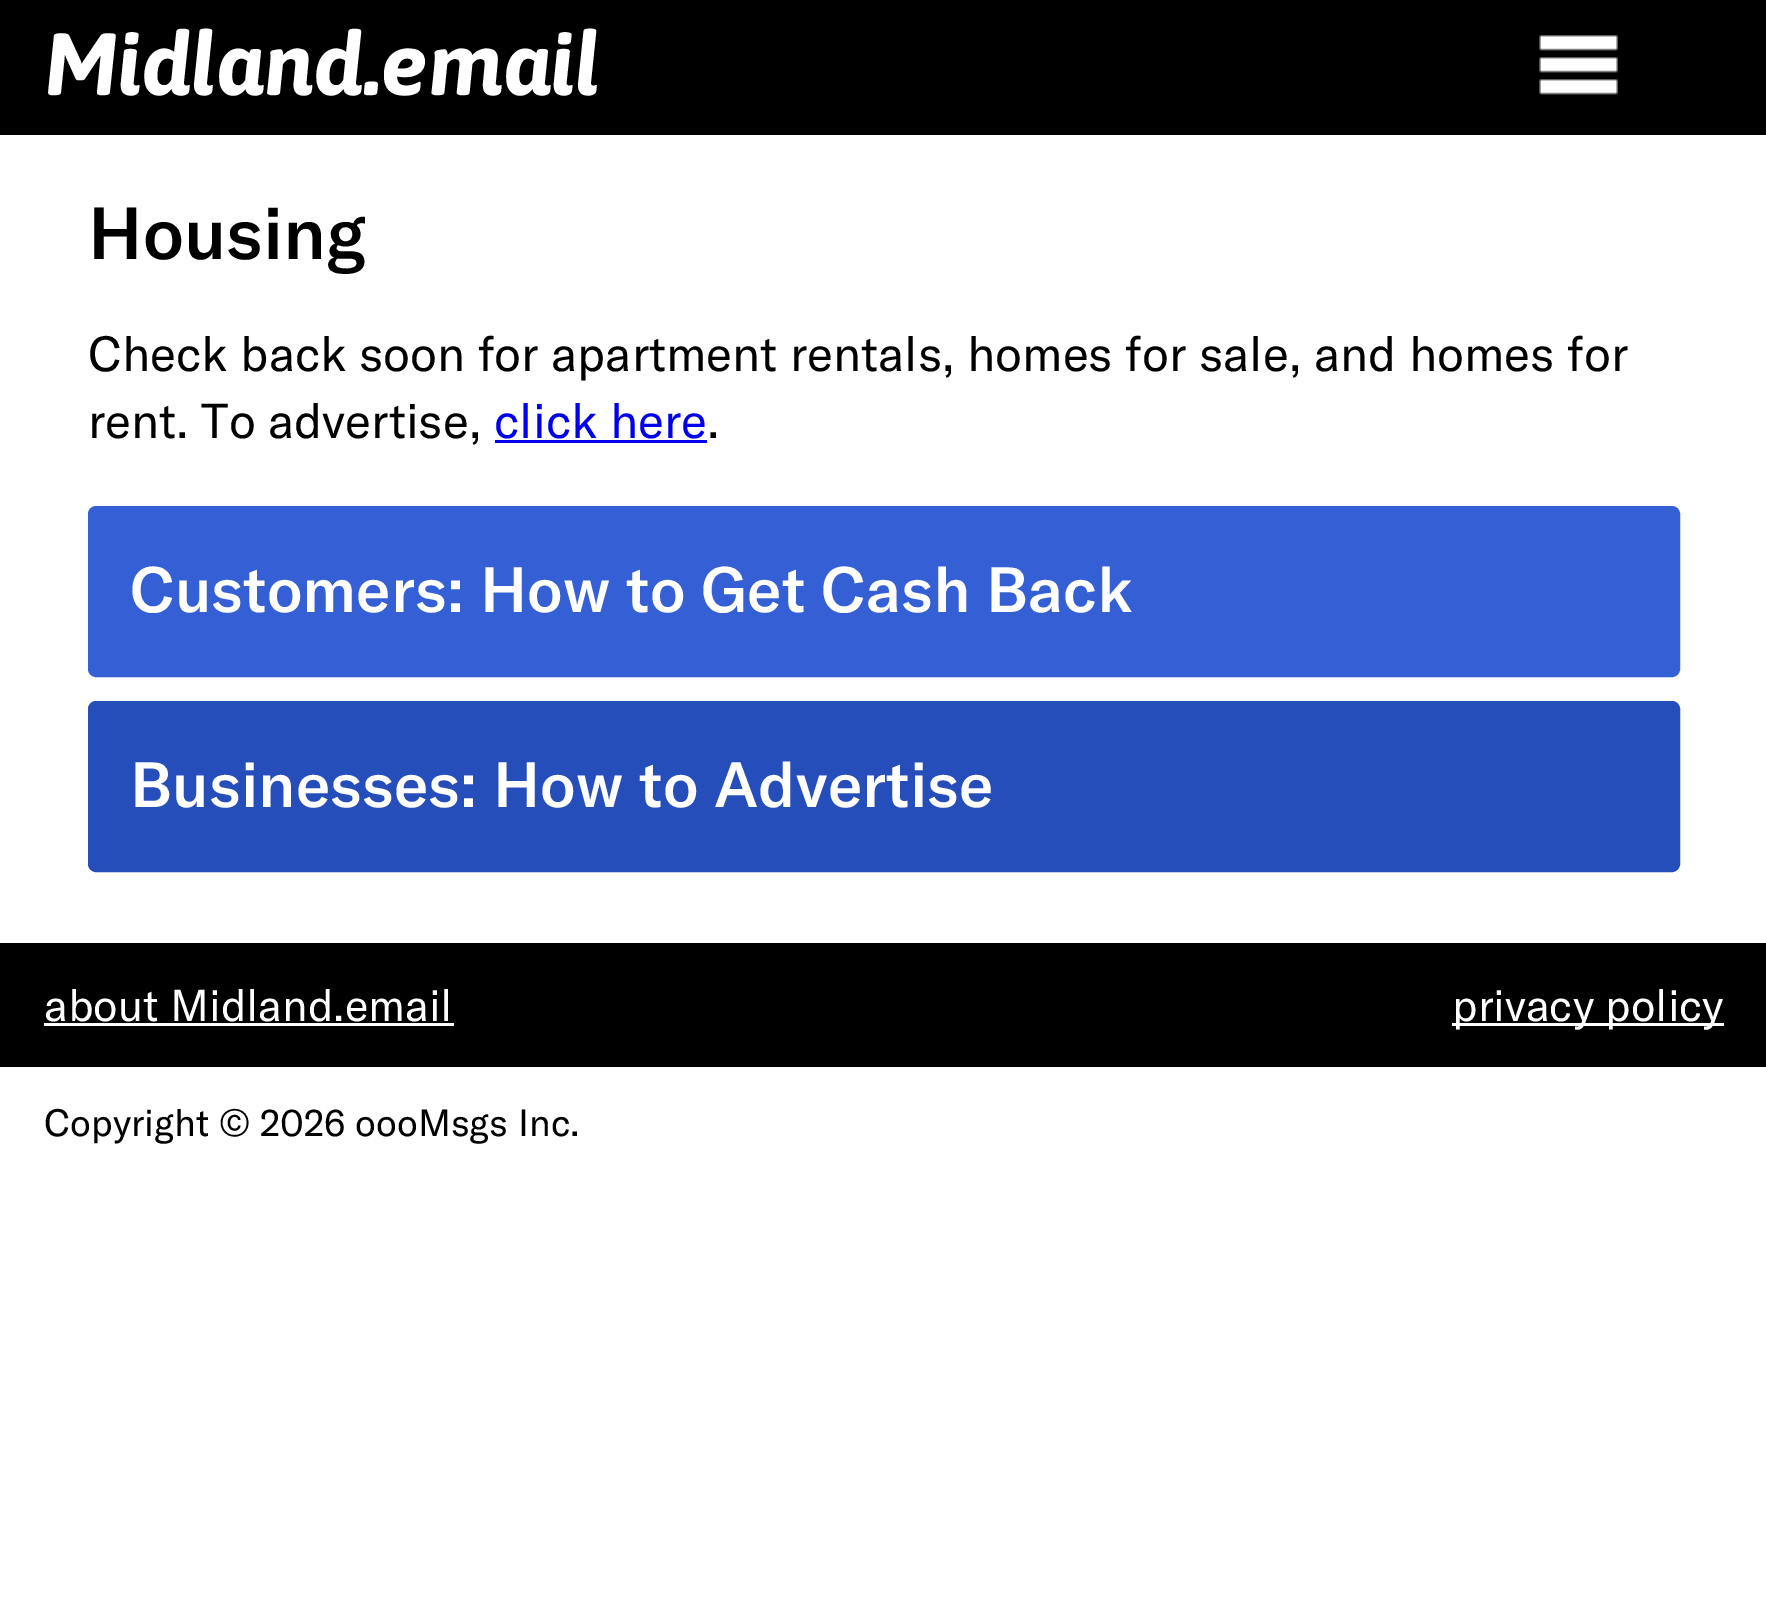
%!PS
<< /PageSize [1766 1603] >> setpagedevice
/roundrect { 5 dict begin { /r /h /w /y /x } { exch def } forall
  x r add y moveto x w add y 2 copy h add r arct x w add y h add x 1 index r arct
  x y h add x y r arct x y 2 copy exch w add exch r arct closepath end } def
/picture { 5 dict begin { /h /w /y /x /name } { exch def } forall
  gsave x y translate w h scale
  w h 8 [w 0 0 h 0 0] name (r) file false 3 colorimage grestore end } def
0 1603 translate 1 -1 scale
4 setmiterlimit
1 setgray
0 0 1766 1603 rectfill
0 setgray
0 0 1766 135 rectfill
/Asap-BoldItalic [88 0 0 -88 0 0] selectfont
1 setgray
44 95 moveto (Midland.email) show
(img1.rgb) 1539 35 79 60 picture
/GTAmerica-Medium [72.5 0 0 -72.5 0 0] selectfont
0 setgray
88 259 moveto (Housing) show
/GTAmerica-Regular [48.4 0 0 -48.4 0 0] selectfont
88 371 moveto (Check back soon for apartment rentals, homes for sale, and homes for) show
88 438 moveto (rent. To advertise,) show
0 0 0.933 setrgbcolor
494 438 moveto (click here) show
495 440 212 3 rectfill
0 setgray
707 438 moveto (.) show
0.204 0.373 0.835 setrgbcolor
89.5 507.5 1589 168 6.5 roundrect gsave fill grestore
3 setlinewidth
stroke
/GTAmerica-Medium [62.9 0 0 -62.9 0 0] selectfont
1 setgray
130 612 moveto (Customers: How to Get Cash Back) show
0.149 0.306 0.729 setrgbcolor
89.5 702.5 1589 168 6.5 roundrect gsave fill grestore
stroke
1 setgray
130 807 moveto (Businesses: How to Advertise) show
0 setgray
0 943 1766 124 rectfill
/GTAmerica-Regular [44 0 0 -44 0 0] selectfont
1 setgray
44 1021 moveto (about Midland.email) show
44 1023 410 3 rectfill
1452 1023 272 3 rectfill
1452 1021 moveto (privacy policy) show
/GTAmerica-Regular [37.4 0 0 -37.4 0 0] selectfont
0 setgray
44 1136 moveto (Copyright © 2026 oooMsgs Inc.) show
showpage
